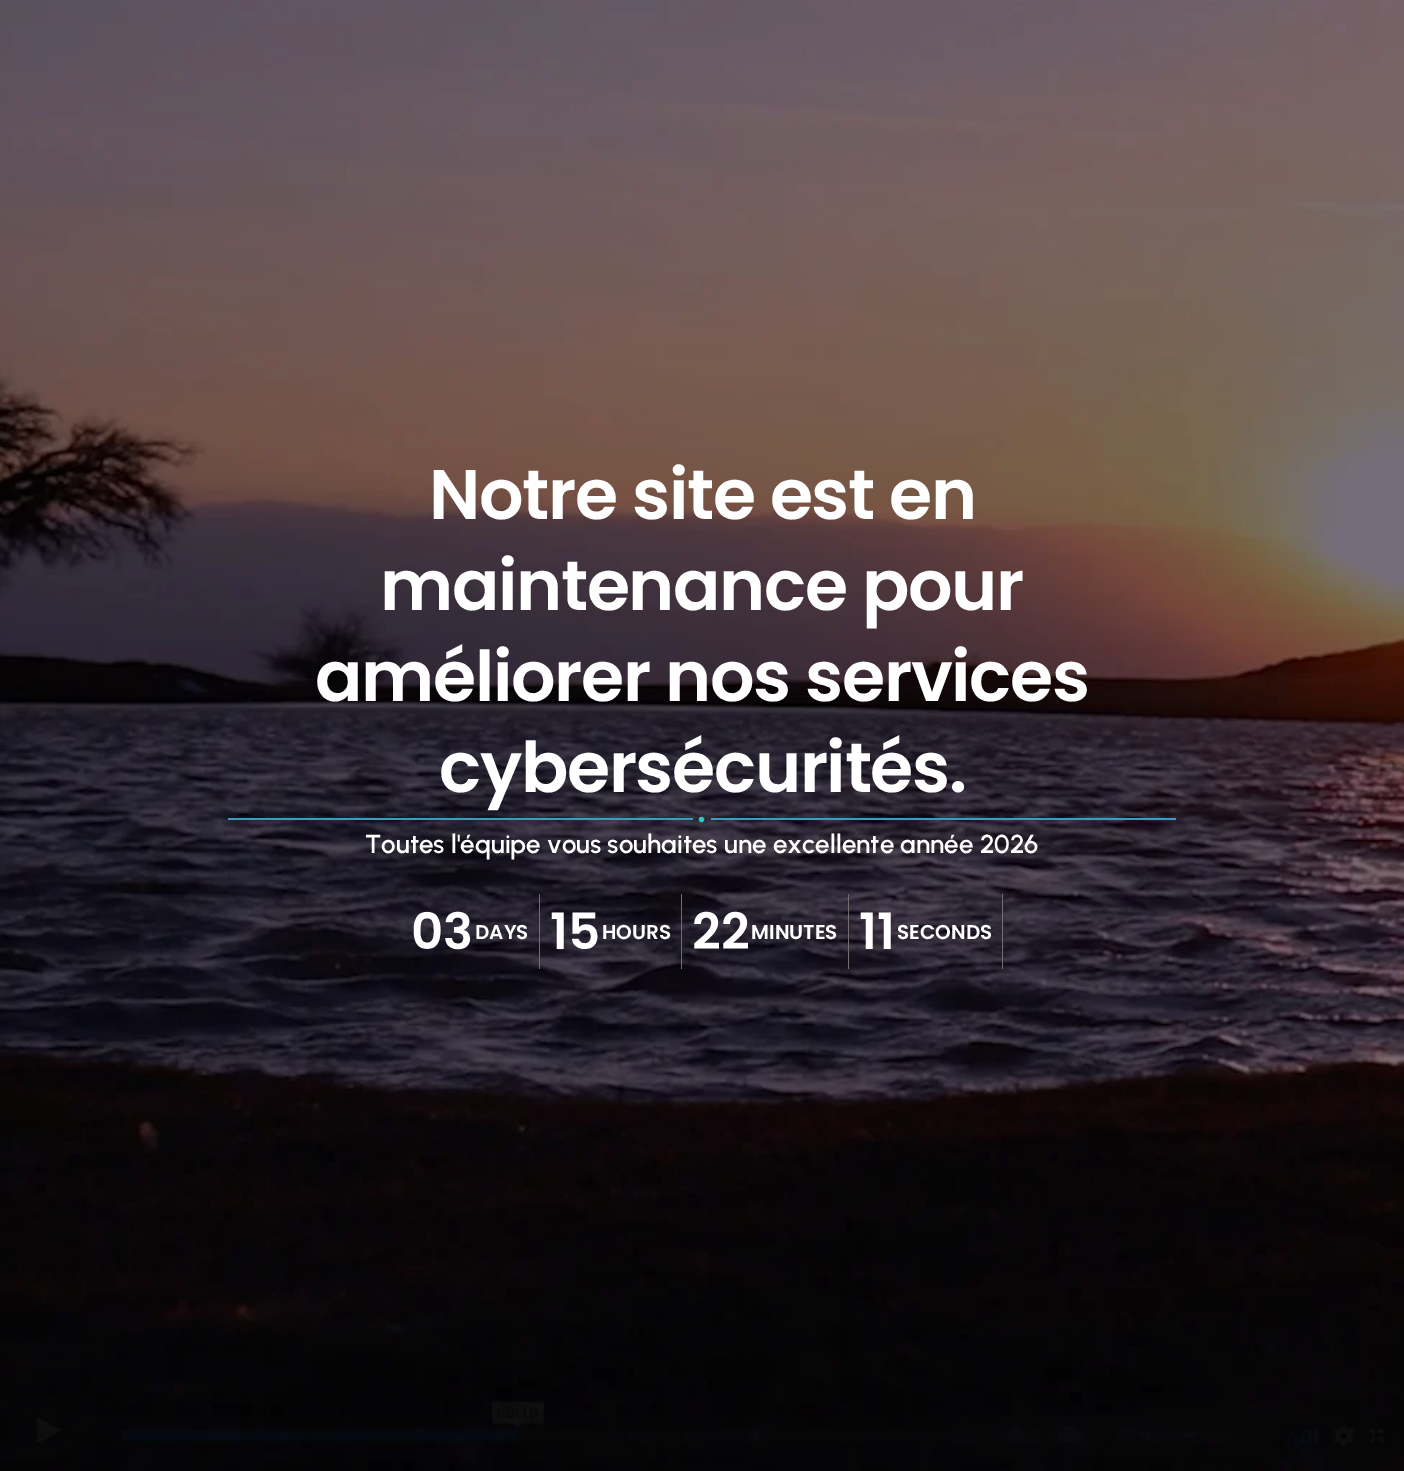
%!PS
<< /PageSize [1404 1471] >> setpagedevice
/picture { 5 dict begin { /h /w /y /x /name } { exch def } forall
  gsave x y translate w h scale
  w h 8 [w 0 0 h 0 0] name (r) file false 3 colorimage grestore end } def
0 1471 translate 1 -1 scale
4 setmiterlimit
1 setgray
0 0 1404 1471 rectfill
(img1.rgb) 0 0 1404 1471 picture
/Poppins-SemiBold [70 0 0 -70 0 0] selectfont
429 519 moveto -1.4 0 (Notre site est en) ashow
380 610 moveto -1.4 0 (maintenance pour) ashow
315 701 moveto -1.4 0 (améliorer nos services) ashow
439 792 moveto -1.4 0 (cybersécurités.) ashow
0.251 0.6 0.765 setrgbcolor
228 818 465 2 rectfill
/DMSans-Regular [50 0 0 -50 0 0] selectfont
0.169 0.792 0.769 setrgbcolor
697 822 moveto (.) show
0.251 0.6 0.765 setrgbcolor
711 818 465 2 rectfill
/Urbanist-SemiBold [26 0 0 -26 0 0] selectfont
1 setgray
365 853 moveto (Toutes l'équipe vous souhaites une excellente année 2026) show
0.451 0.431 0.431 setrgbcolor
539 894 1 75 rectfill
/Poppins-SemiBold [50 0 0 -50 0 0] selectfont
1 setgray
411 949 moveto (03) show
/Poppins-SemiBold [20 0 0 -20 0 0] selectfont
475 939 moveto (DAYS) show
0.451 0.431 0.431 setrgbcolor
681 894 1 75 rectfill
/Poppins-SemiBold [50 0 0 -50 0 0] selectfont
1 setgray
550 949 moveto (15) show
/Poppins-SemiBold [20 0 0 -20 0 0] selectfont
602 939 moveto (HOURS) show
0.451 0.431 0.431 setrgbcolor
848 894 1 75 rectfill
/Poppins-SemiBold [50 0 0 -50 0 0] selectfont
1 setgray
692 949 moveto (22) show
/Poppins-SemiBold [20 0 0 -20 0 0] selectfont
751 939 moveto (MINUTES) show
0.451 0.431 0.431 setrgbcolor
1002 894 1 75 rectfill
/Poppins-SemiBold [50 0 0 -50 0 0] selectfont
1 setgray
859 949 moveto (11) show
/Poppins-SemiBold [20 0 0 -20 0 0] selectfont
897 939 moveto (SECONDS) show
showpage
